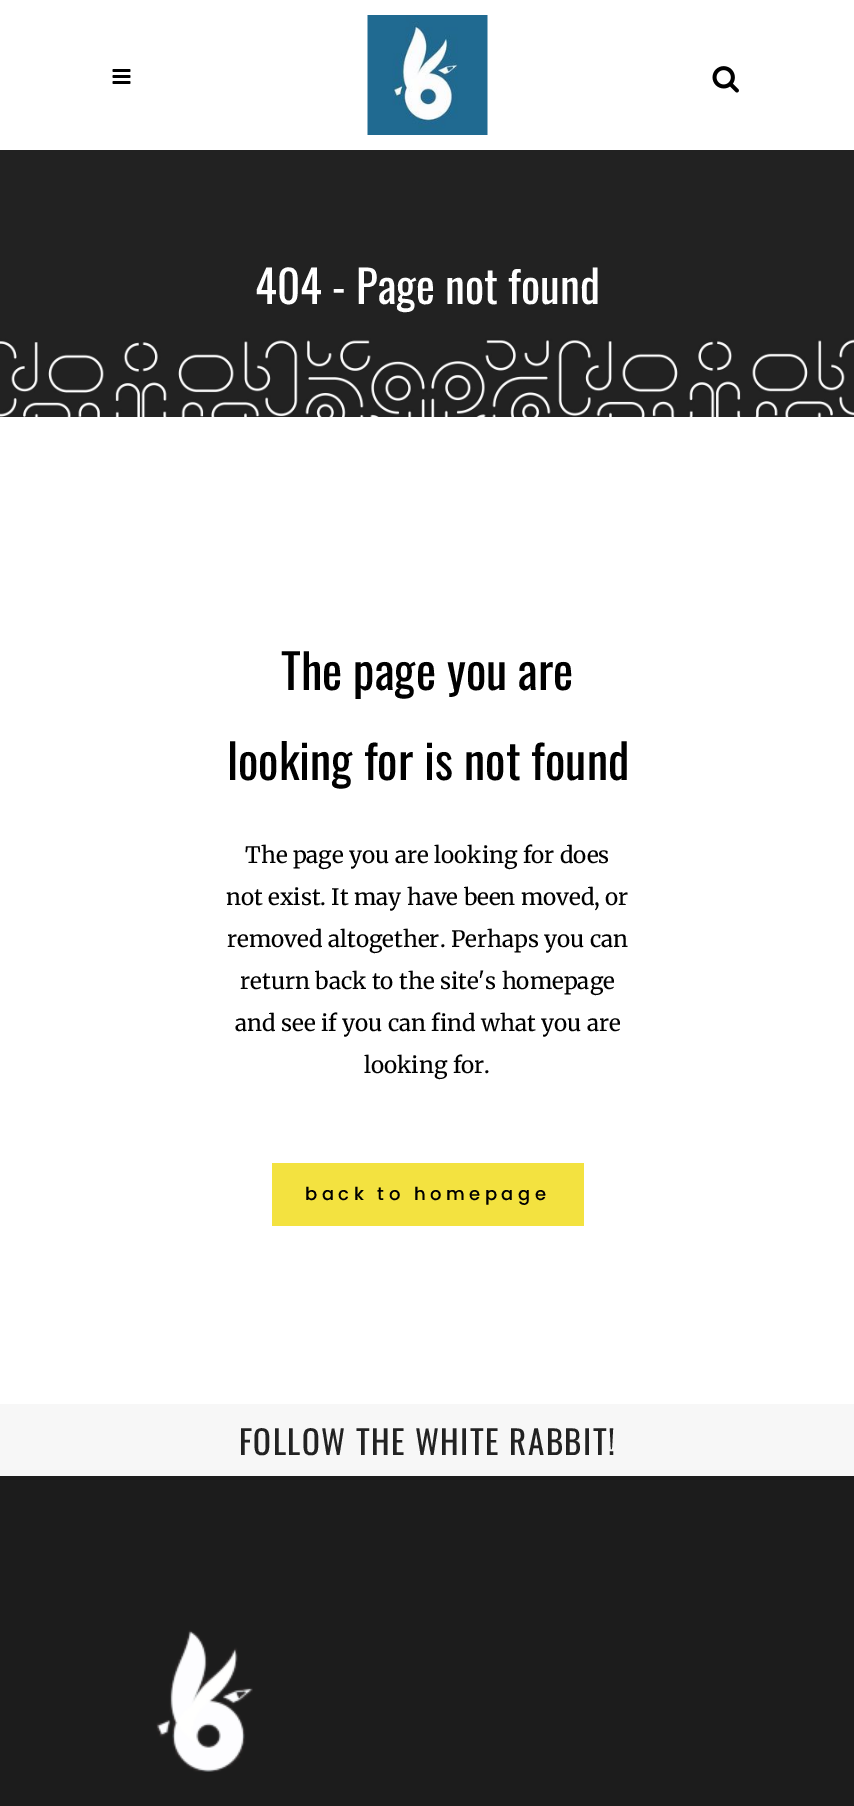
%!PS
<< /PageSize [854 1806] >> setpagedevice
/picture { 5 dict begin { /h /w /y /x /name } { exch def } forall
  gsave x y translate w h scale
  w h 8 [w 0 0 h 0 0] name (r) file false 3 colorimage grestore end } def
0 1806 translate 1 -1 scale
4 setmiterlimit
1 setgray
0 0 854 1806 rectfill
(img1.rgb) 112 69 19 15 picture
(img2.rgb) 367 15 121 120 picture
(img3.rgb) 712 66 27 27 picture
(img4.rgb) 0 150 854 267 picture
/Oswald-Regular [45 0 0 -45 0 0] selectfont
255 304 moveto (404 - Page not found) show
/Oswald-Regular [48 0 0 -48 0 0] selectfont
0 setgray
281 690 moveto (The page you are) show
227 780 moveto (looking for is not found) show
/Merriweather-Regular [22.5 0 0 -22.5 0 0] selectfont
245 863 moveto (The page you are looking for does) show
226 905 moveto (not exist. It may have been moved, or) show
227 947 moveto (removed altogether. Perhaps you can) show
240 989 moveto (return back to the site's homepage) show
235 1031 moveto (and see if you can find what you are) show
364 1073 moveto (looking for.) show
0.953 0.886 0.251 setrgbcolor
272 1163 312 63 rectfill
/Poppins-Medium [18 0 0 -18 0 0] selectfont
0 setgray
305 1200 moveto 4.5 0 (back to homepage) ashow
0.969 setgray
0 1404 854 72 rectfill
/Oswald-Regular [33 0 0 -33 0 0] selectfont
0.133 setgray
239 1455 moveto 1.5 0 (FOLLOW THE WHITE RABBIT!) ashow
0.11 setgray
0 1476 854 330 rectfill
(img5.rgb) 156 1630 97 142 picture
showpage
